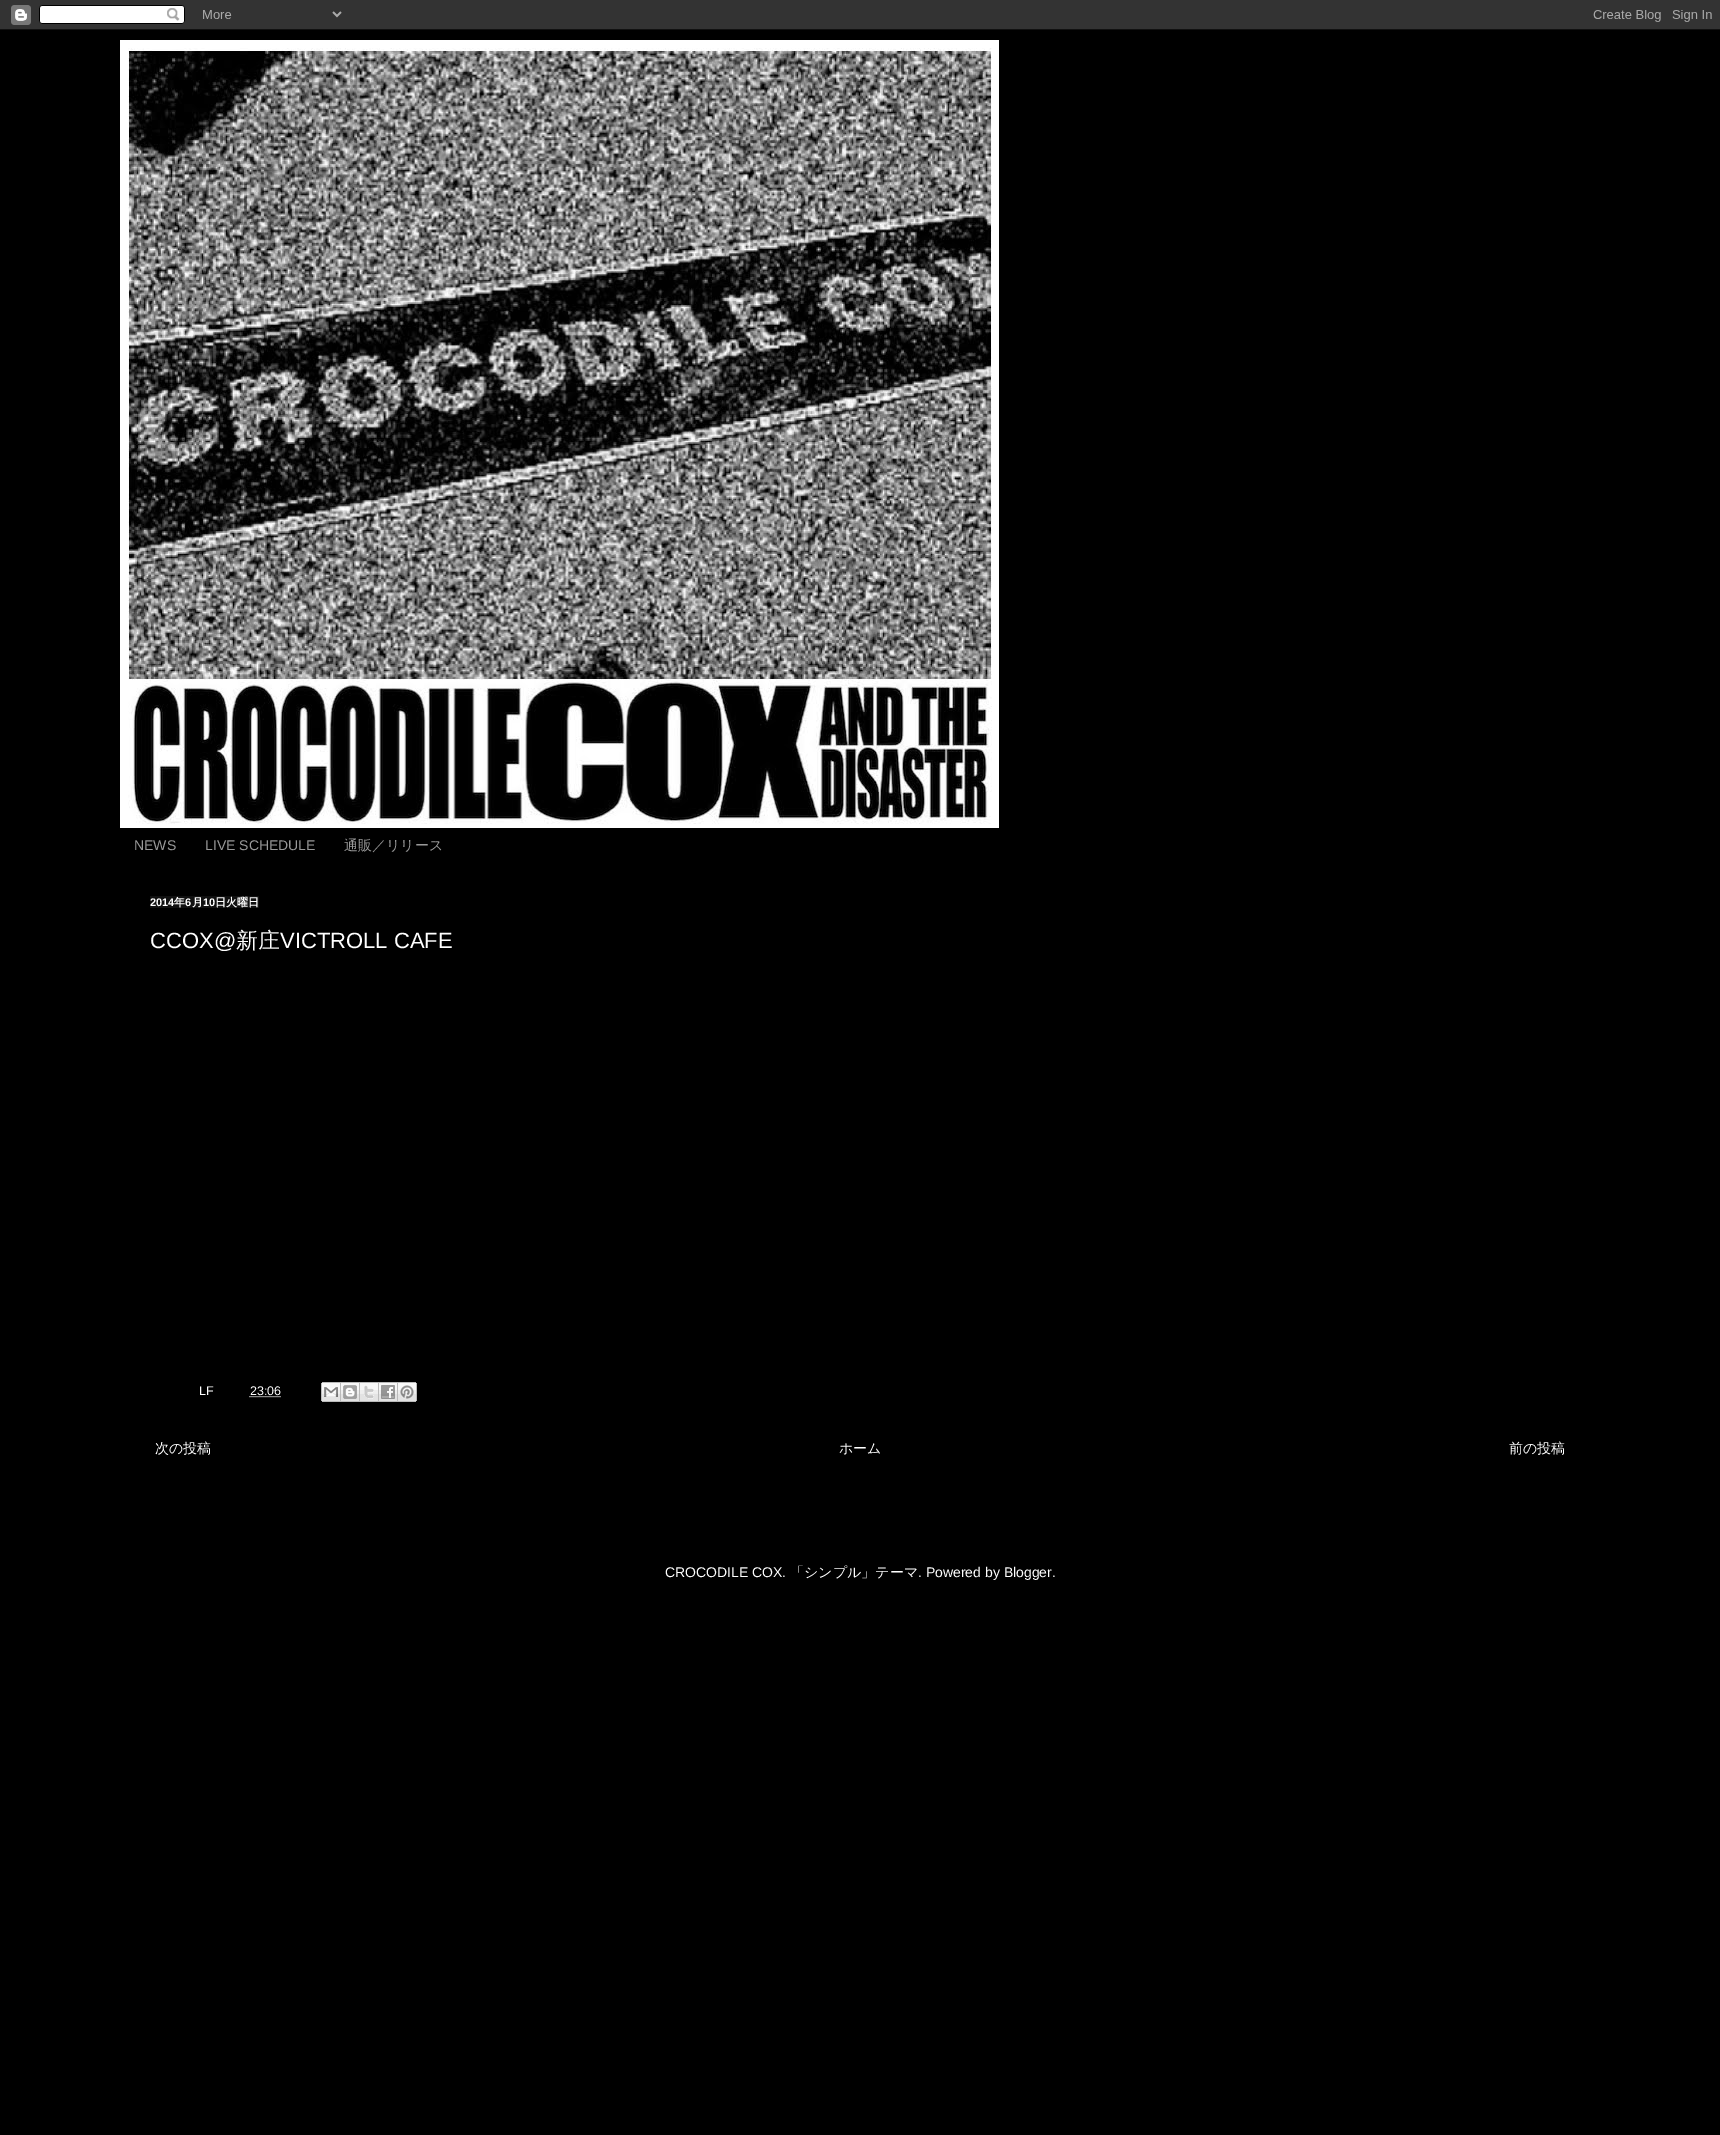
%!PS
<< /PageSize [1720 2135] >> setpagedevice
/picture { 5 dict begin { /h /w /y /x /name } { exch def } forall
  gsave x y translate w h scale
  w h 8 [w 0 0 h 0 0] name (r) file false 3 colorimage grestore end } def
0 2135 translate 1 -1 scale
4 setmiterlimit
0 setgray
0 0 1720 2135 rectfill
(img1.rgb) 0 0 1720 30 picture
(img2.rgb) 120 40 879 788 picture
/LiberationSans-Regular [14 0 0 -14 0 0] selectfont
0.6 setgray
134 850 moveto (NEWS) show
205 850 moveto (LIVE SCHEDULE) show
/WenQuanYiZenHei-Medium [14 0 0 -14 0 0] selectfont
344 850 moveto (通販／リリース) show
0.067 setgray
150 896 109 12 rectfill
/LiberationSans-Bold [11 0 0 -11 0 0] selectfont
1 setgray
150 906 moveto (2014) show
/WenQuanYiZenHei-Bold [11 0 0 -11 0 0] selectfont
174 906 moveto (年) show
/LiberationSans-Bold [11 0 0 -11 0 0] selectfont
185 906 moveto (6) show
/WenQuanYiZenHei-Bold [11 0 0 -11 0 0] selectfont
192 906 moveto (月) show
/LiberationSans-Bold [11 0 0 -11 0 0] selectfont
203 906 moveto (10) show
/WenQuanYiZenHei-Bold [11 0 0 -11 0 0] selectfont
215 906 moveto (日火曜日) show
/LiberationSans-Regular [22 0 0 -22 0 0] selectfont
150 948 moveto (CCOX@) show
/WenQuanYiZenHei-Medium [22 0 0 -22 0 0] selectfont
236 948 moveto (新庄) show
/LiberationSans-Regular [22 0 0 -22 0 0] selectfont
280 948 moveto (VICTROLL CAFE) show
/LiberationSans-Regular [12.5 0 0 -12.5 0 0] selectfont
199 1395 moveto (LF) show
250 1395 moveto (23:06) show
[1 1] 0 setdash
newpath 249.5 1396.5 moveto 281 1396.5 lineto stroke
(img3.rgb) 321 1382 20 20 picture
(img4.rgb) 341 1382 19 20 picture
(img5.rgb) 360 1382 19 20 picture
(img6.rgb) 379 1382 19 20 picture
(img7.rgb) 398 1382 19 20 picture
/WenQuanYiZenHei-Medium [14 0 0 -14 0 0] selectfont
155 1453 moveto (次の投稿) show
839 1453 moveto (ホーム) show
1509 1453 moveto (前の投稿) show
/LiberationSans-Regular [14 0 0 -14 0 0] selectfont
665 1577 moveto (CROCODILE COX.) show
/WenQuanYiZenHei-Medium [14 0 0 -14 0 0] selectfont
790 1577 moveto (「シンプル」テーマ) show
/LiberationSans-Regular [14 0 0 -14 0 0] selectfont
918 1577 moveto (. Powered by Blogger.) show
showpage
